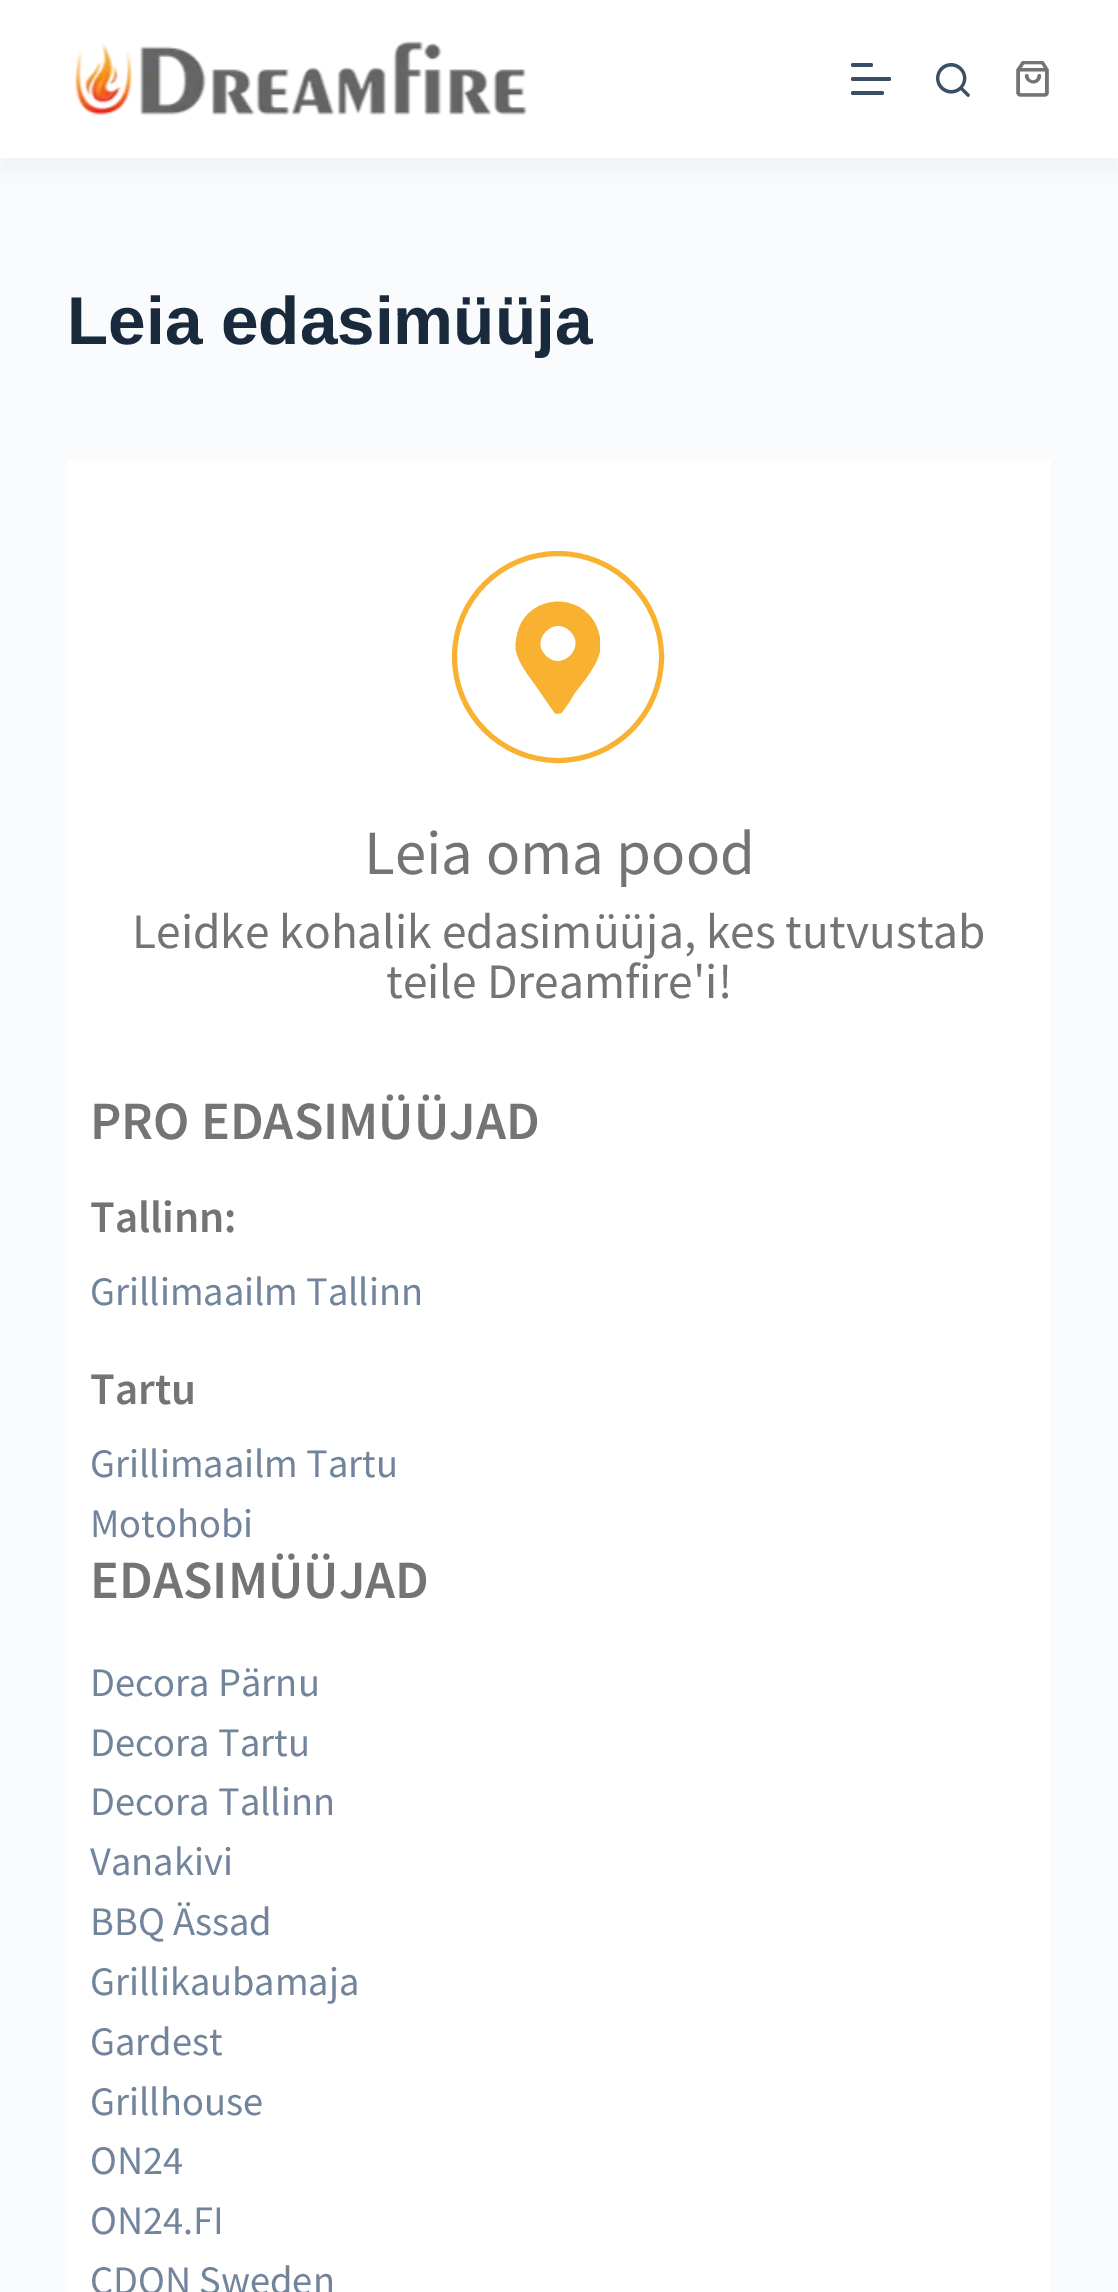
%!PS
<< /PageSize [1118 2292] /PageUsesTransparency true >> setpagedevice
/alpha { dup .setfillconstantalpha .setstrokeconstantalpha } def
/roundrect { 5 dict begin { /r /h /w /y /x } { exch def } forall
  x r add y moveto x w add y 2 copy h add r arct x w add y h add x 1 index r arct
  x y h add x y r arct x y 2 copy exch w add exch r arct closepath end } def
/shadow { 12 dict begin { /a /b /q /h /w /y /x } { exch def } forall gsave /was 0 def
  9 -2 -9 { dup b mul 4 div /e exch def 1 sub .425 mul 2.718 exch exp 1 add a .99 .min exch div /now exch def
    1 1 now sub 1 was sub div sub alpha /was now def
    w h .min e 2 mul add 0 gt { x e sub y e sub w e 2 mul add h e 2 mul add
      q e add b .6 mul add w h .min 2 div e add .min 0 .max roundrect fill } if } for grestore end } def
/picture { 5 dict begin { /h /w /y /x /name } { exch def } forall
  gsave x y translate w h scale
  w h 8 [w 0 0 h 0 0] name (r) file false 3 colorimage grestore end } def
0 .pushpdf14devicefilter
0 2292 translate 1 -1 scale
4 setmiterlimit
0.98 0.984 0.988 setrgbcolor
0 0 1118 2292 rectfill
0.173 0.243 0.314 setrgbcolor
0 11 1118 158 0 11 0.05 shadow
1 setgray
0 0 1118 158 rectfill
(img1.rgb) 74 41 453 75 picture
0.227 0.31 0.4 setrgbcolor
851 63 22 4 2 roundrect fill
851 77 40 4 2 roundrect fill
851 91 33 4 2 roundrect fill
(img2.rgb) 936 63 34 34 picture
(img3.rgb) 1016 61 33 36 picture
/LiberationSans-Bold [67.5 0 0 -67.5 0 0] selectfont
0.098 0.165 0.239 setrgbcolor
67 344 moveto (Leia edasimüüja) show
1 setgray
68 461 983 1831 rectfill
0.973 0.694 0.192 setrgbcolor
5 setlinewidth
newpath 558 657 103.5 0 360 arc closepath stroke
newpath 554 712 moveto 536 686 lineto 529 676 519 664 516 651 curveto 515 646 516 640 517 635 curveto 524 598 573 590 593 620 curveto 597 626 599 632 600 639 curveto 600 643 600 648 600 651 curveto 597 666 583 682 574 694 curveto 572 698 563 712 561 713 curveto 558 714 555 714 554 712 curveto closepath 546 656 moveto 562 672 587 647 570 631 curveto 554 615 529 640 546 656 curveto closepath fill
/SourceSansPro-Regular [63 0 0 -63 0 0] selectfont
0.455 setgray
364 874 moveto (Leia oma pood) show
/SourceSansPro-Regular [49.5 0 0 -49.5 0 0] selectfont
132 948 moveto (Leidke kohalik edasimüüja, kes tutvustab) show
386 998 moveto (teile Dreamfire'i!) show
/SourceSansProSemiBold-SemiBold [54 0 0 -54 0 0] selectfont
90 1139 moveto (PRO EDASIMÜÜJAD) show
/SourceSansProSemiBold-SemiBold [45 0 0 -45 0 0] selectfont
90 1232 moveto (Tallinn:) show
/SourceSansPro-Regular [40.5 0 0 -40.5 0 0] selectfont
0.447 0.518 0.612 setrgbcolor
90 1305 moveto (Grillimaailm Tallinn) show
/SourceSansProSemiBold-SemiBold [45 0 0 -45 0 0] selectfont
0.455 setgray
90 1404 moveto (Tartu) show
/SourceSansPro-Regular [40.5 0 0 -40.5 0 0] selectfont
0.447 0.518 0.612 setrgbcolor
90 1477 moveto (Grillimaailm Tartu) show
90 1537 moveto (Motohobi) show
/SourceSansProSemiBold-SemiBold [54 0 0 -54 0 0] selectfont
0.455 setgray
90 1598 moveto (EDASIMÜÜJAD) show
/SourceSansPro-Regular [40.5 0 0 -40.5 0 0] selectfont
0.447 0.518 0.612 setrgbcolor
90 1696 moveto (Decora Pärnu) show
90 1756 moveto (Decora Tartu) show
90 1815 moveto (Decora Tallinn) show
90 1875 moveto (Vanakivi) show
90 1935 moveto (BBQ Ässad) show
90 1995 moveto (Grillikaubamaja) show
90 2055 moveto (Gardest) show
90 2115 moveto (Grillhouse) show
90 2174 moveto (ON24) show
90 2234 moveto (ON24.FI) show
90 2294 moveto (CDON Sweden) show
.poppdf14devicefilter showpage
